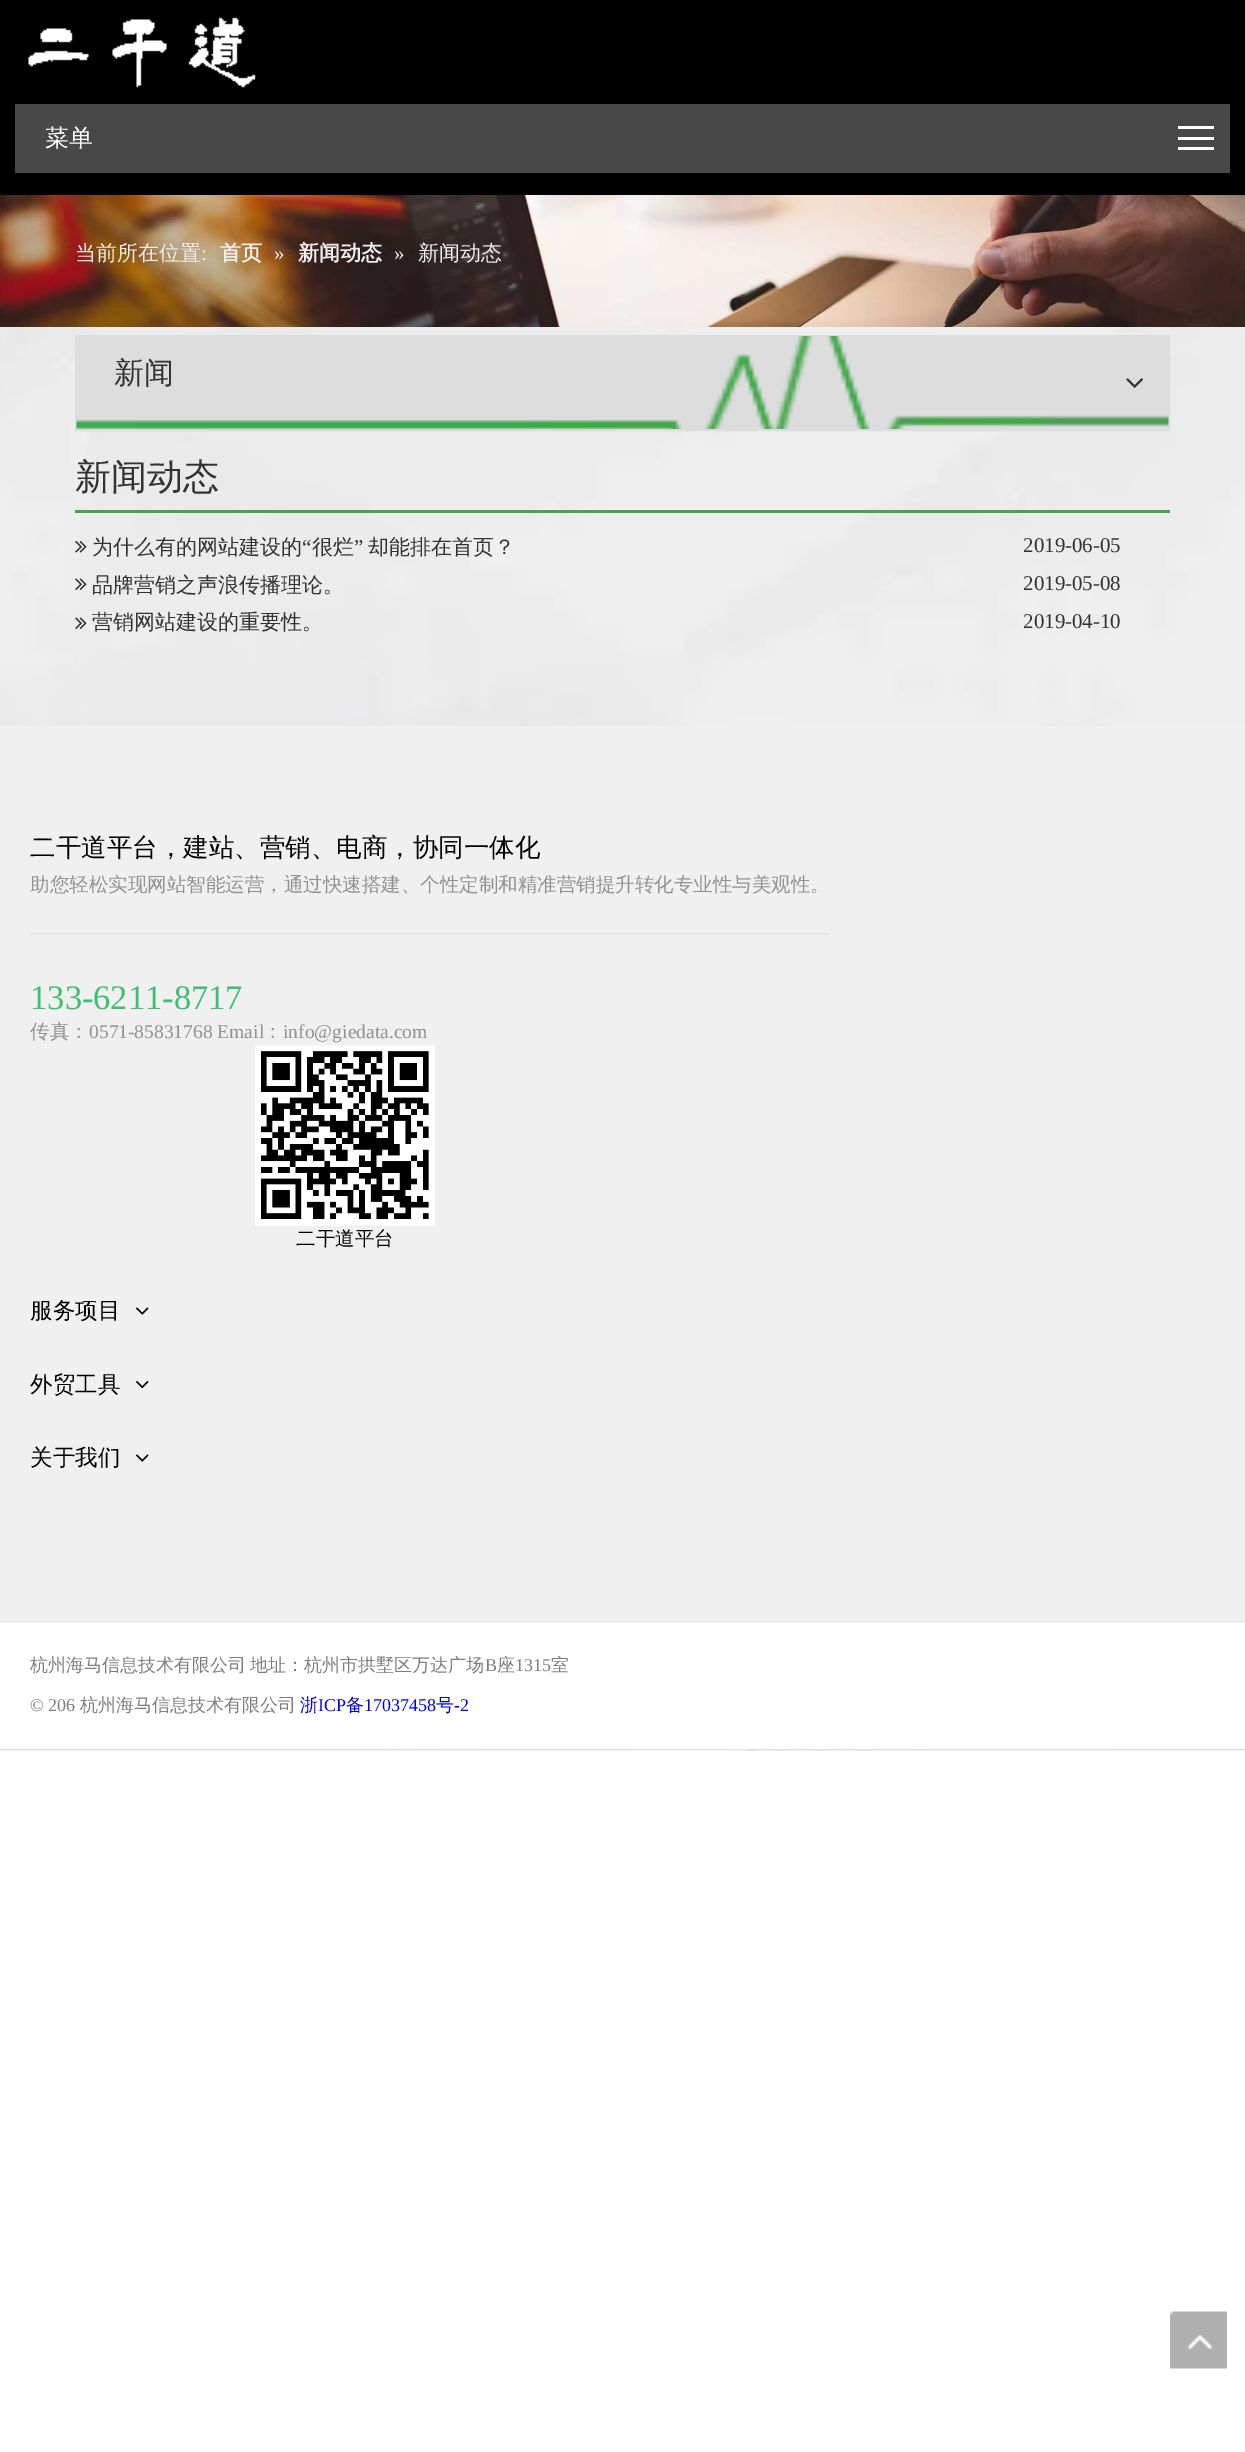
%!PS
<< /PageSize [1245 2452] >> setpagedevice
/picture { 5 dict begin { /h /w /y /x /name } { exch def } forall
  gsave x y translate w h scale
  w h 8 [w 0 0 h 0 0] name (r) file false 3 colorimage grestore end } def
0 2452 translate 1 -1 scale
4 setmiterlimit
1 setgray
0 0 1245 2452 rectfill
(img1.rgb) 0 327 1245 1424 picture
0 setgray
0 0 1245 195 rectfill
(img2.rgb) 28 17 228 71 picture
0.282 setgray
15 104 1215 69 rectfill
/WenQuanYiZenHei-Medium [24 0 0 -24 0 0] selectfont
1 setgray
45 146 moveto (菜单) show
1178 126 36 3 rectfill
1178 137 36 3 rectfill
1178 147 36 3 rectfill
(img3.rgb) 0 195 1245 132 picture
/WenQuanYiZenHei-Medium [21 0 0 -21 0 0] selectfont
0.933 setgray
75 260 moveto (当前所在位置) show
/LiberationSerif-Regular [21 0 0 -21 0 0] selectfont
201 260 moveto (:) show
/WenQuanYiZenHei-Bold [21 0 0 -21 0 0] selectfont
220 260 moveto (首页) show
/LiberationSerif-Regular [21 0 0 -21 0 0] selectfont
274 260 moveto (») show
/WenQuanYiZenHei-Bold [21 0 0 -21 0 0] selectfont
298 260 moveto (新闻动态) show
/LiberationSerif-Regular [21 0 0 -21 0 0] selectfont
394 260 moveto (») show
/WenQuanYiZenHei-Medium [21 0 0 -21 0 0] selectfont
418 260 moveto (新闻动态) show
0.867 setgray
2 setlinewidth
76 336 1093 94 rectstroke
77 337 1091 92 rectfill
(img4.rgb) 76 336 1093 93 picture
/WenQuanYiZenHei-Medium [30 0 0 -30 0 0] selectfont
0.2 setgray
114 383 moveto (新闻) show
(img5.rgb) 1126 378 17 10 picture
0.259 0.655 0.294 setrgbcolor
75 510 1095 3 rectfill
/WenQuanYiZenHei-Medium [36 0 0 -36 0 0] selectfont
0.2 setgray
75 489 moveto (新闻动态) show
(img6.rgb) 75 541 12 12 picture
/WenQuanYiZenHei-Medium [21 0 0 -21 0 0] selectfont
92 554 moveto (为什么有的网站建设的) show
/LiberationSerif-Regular [21 0 0 -21 0 0] selectfont
302 554 moveto (“) show
/WenQuanYiZenHei-Medium [21 0 0 -21 0 0] selectfont
312 554 moveto (很烂) show
/LiberationSerif-Regular [21 0 0 -21 0 0] selectfont
354 554 moveto (”) show
/WenQuanYiZenHei-Medium [21 0 0 -21 0 0] selectfont
368 554 moveto (却能排在首页？) show
/LiberationSerif-Regular [21 0 0 -21 0 0] selectfont
1023 552 moveto (2019-06-05) show
(img7.rgb) 75 578 12 12 picture
/WenQuanYiZenHei-Medium [21 0 0 -21 0 0] selectfont
92 592 moveto (品牌营销之声浪传播理论。) show
/LiberationSerif-Regular [21 0 0 -21 0 0] selectfont
1023 590 moveto (2019-05-08) show
(img8.rgb) 75 617 12 12 picture
/WenQuanYiZenHei-Medium [21 0 0 -21 0 0] selectfont
92 629 moveto (营销网站建设的重要性。) show
/LiberationSerif-Regular [21 0 0 -21 0 0] selectfont
1023 628 moveto (2019-04-10) show
0.941 setgray
0 726 1245 897 rectfill
0.898 setgray
30 933 800 2 rectfill
/WenQuanYiZenHei-Medium [25.5 0 0 -25.5 0 0] selectfont
0 setgray
30 856 moveto (二干道平台，建站、营销、电商，协同一体化) show
/WenQuanYiZenHei-Medium [19.5 0 0 -19.5 0 0] selectfont
0.569 setgray
30 891 moveto (助您轻松实现网站智能运营，通过快速搭建、个性定制和精准营销提升转化专业性与美观性。) show
/LiberationSerif-Regular [34.5 0 0 -34.5 0 0] selectfont
0.247 0.745 0.447 setrgbcolor
30 1009 moveto (133-6211-8717) show
/WenQuanYiZenHei-Medium [19.5 0 0 -19.5 0 0] selectfont
0.569 setgray
30 1038 moveto (传真：) show
/LiberationSerif-Regular [19.5 0 0 -19.5 0 0] selectfont
89 1038 moveto (0571-85831768 Email) show
/WenQuanYiZenHei-Medium [19.5 0 0 -19.5 0 0] selectfont
263 1038 moveto (：) show
/LiberationSerif-Regular [19.5 0 0 -19.5 0 0] selectfont
283 1038 moveto (info@giedata.com) show
(img9.rgb) 255 1045 180 181 picture
/WenQuanYiZenHei-Medium [19.5 0 0 -19.5 0 0] selectfont
0 setgray
296 1245 moveto (二干道平台) show
/WenQuanYiZenHei-Medium [22.5 0 0 -22.5 0 0] selectfont
30 1318 moveto (服务项目) show
(img10.rgb) 136 1307 13 8 picture
30 1392 moveto (外贸工具) show
(img11.rgb) 136 1381 13 8 picture
30 1465 moveto (关于我们) show
(img10.rgb) 136 1454 13 8 picture
1 setgray
0 1623 1245 126 rectfill
/WenQuanYiZenHei-Medium [18 0 0 -18 0 0] selectfont
0.494 setgray
30 1671 moveto -1 0 32 (杭州海马信息技术有限公司 地址：杭州市拱墅区万达广场) widthshow
/LiberationSerif-Regular [18 0 0 -18 0 0] selectfont
485 1671 moveto (B) show
/WenQuanYiZenHei-Medium [18 0 0 -18 0 0] selectfont
497 1671 moveto (座) show
/LiberationSerif-Regular [18 0 0 -18 0 0] selectfont
515 1671 moveto (1315) show
/WenQuanYiZenHei-Medium [18 0 0 -18 0 0] selectfont
551 1671 moveto (室) show
/LiberationSerif-Regular [18 0 0 -18 0 0] selectfont
30 1711 moveto (© 206) show
/WenQuanYiZenHei-Medium [18 0 0 -18 0 0] selectfont
80 1711 moveto (杭州海马信息技术有限公司) show
0 0 0.933 setrgbcolor
300 1711 moveto (浙) show
/LiberationSerif-Regular [18 0 0 -18 0 0] selectfont
318 1711 moveto (ICP) show
/WenQuanYiZenHei-Medium [18 0 0 -18 0 0] selectfont
346 1711 moveto (备) show
/LiberationSerif-Regular [18 0 0 -18 0 0] selectfont
364 1711 moveto (17037458) show
/WenQuanYiZenHei-Medium [18 0 0 -18 0 0] selectfont
436 1711 moveto (号) show
/LiberationSerif-Regular [18 0 0 -18 0 0] selectfont
454 1711 moveto (-2) show
(img12.rgb) 1170 2311 57 58 picture
showpage
